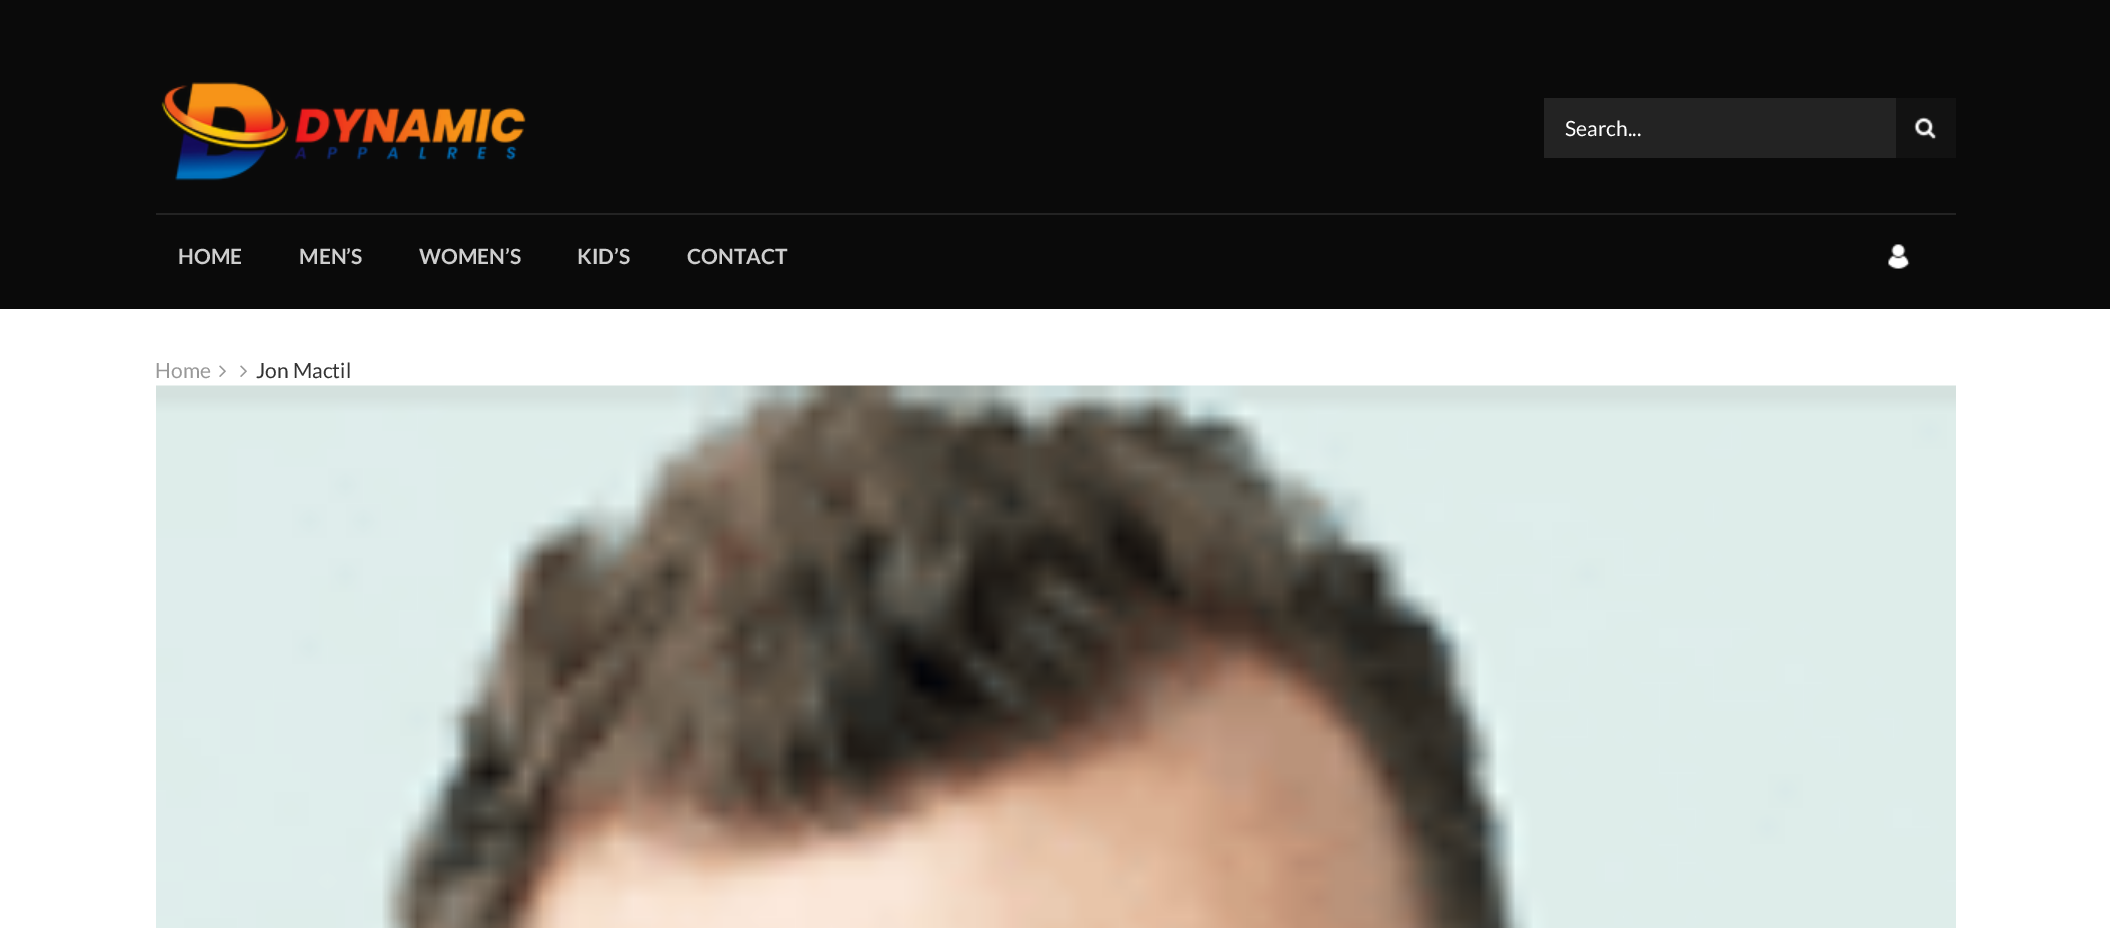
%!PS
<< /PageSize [2110 928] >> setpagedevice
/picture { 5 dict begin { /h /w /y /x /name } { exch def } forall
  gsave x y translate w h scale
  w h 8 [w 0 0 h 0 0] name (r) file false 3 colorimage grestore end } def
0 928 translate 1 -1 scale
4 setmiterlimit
1 setgray
0 0 2110 928 rectfill
0.039 setgray
0 0 2110 309 rectfill
(img1.rgb) 161 82 365 99 picture
0.137 setgray
1544 98 352 60 rectfill
/Lato-Regular [21 0 0 -21 0 0] selectfont
1 setgray
1565 136 moveto (Search...) show
0.071 setgray
1896 98 60 60 rectfill
(img2.rgb) 1914 117 23 23 picture
0.137 setgray
156 213 1800 2 rectfill
/Lato-Bold [21 0 0 -21 0 0] selectfont
0.808 setgray
178 264 moveto (HOME) show
299 264 moveto (MEN’S) show
419 264 moveto (WOMEN’S) show
577 264 moveto (KID’S) show
687 264 moveto (CONTACT) show
(img3.rgb) 1888 244 22 25 picture
/Lato-Regular [21 0 0 -21 0 0] selectfont
0.6 setgray
155 378 moveto (Home) show
(img4.rgb) 219 365 7 12 picture
(img4.rgb) 240 365 7 12 picture
0.2 setgray
256 378 moveto (Jon Mactil) show
(img5.rgb) 156 385 1800 543 picture
showpage
